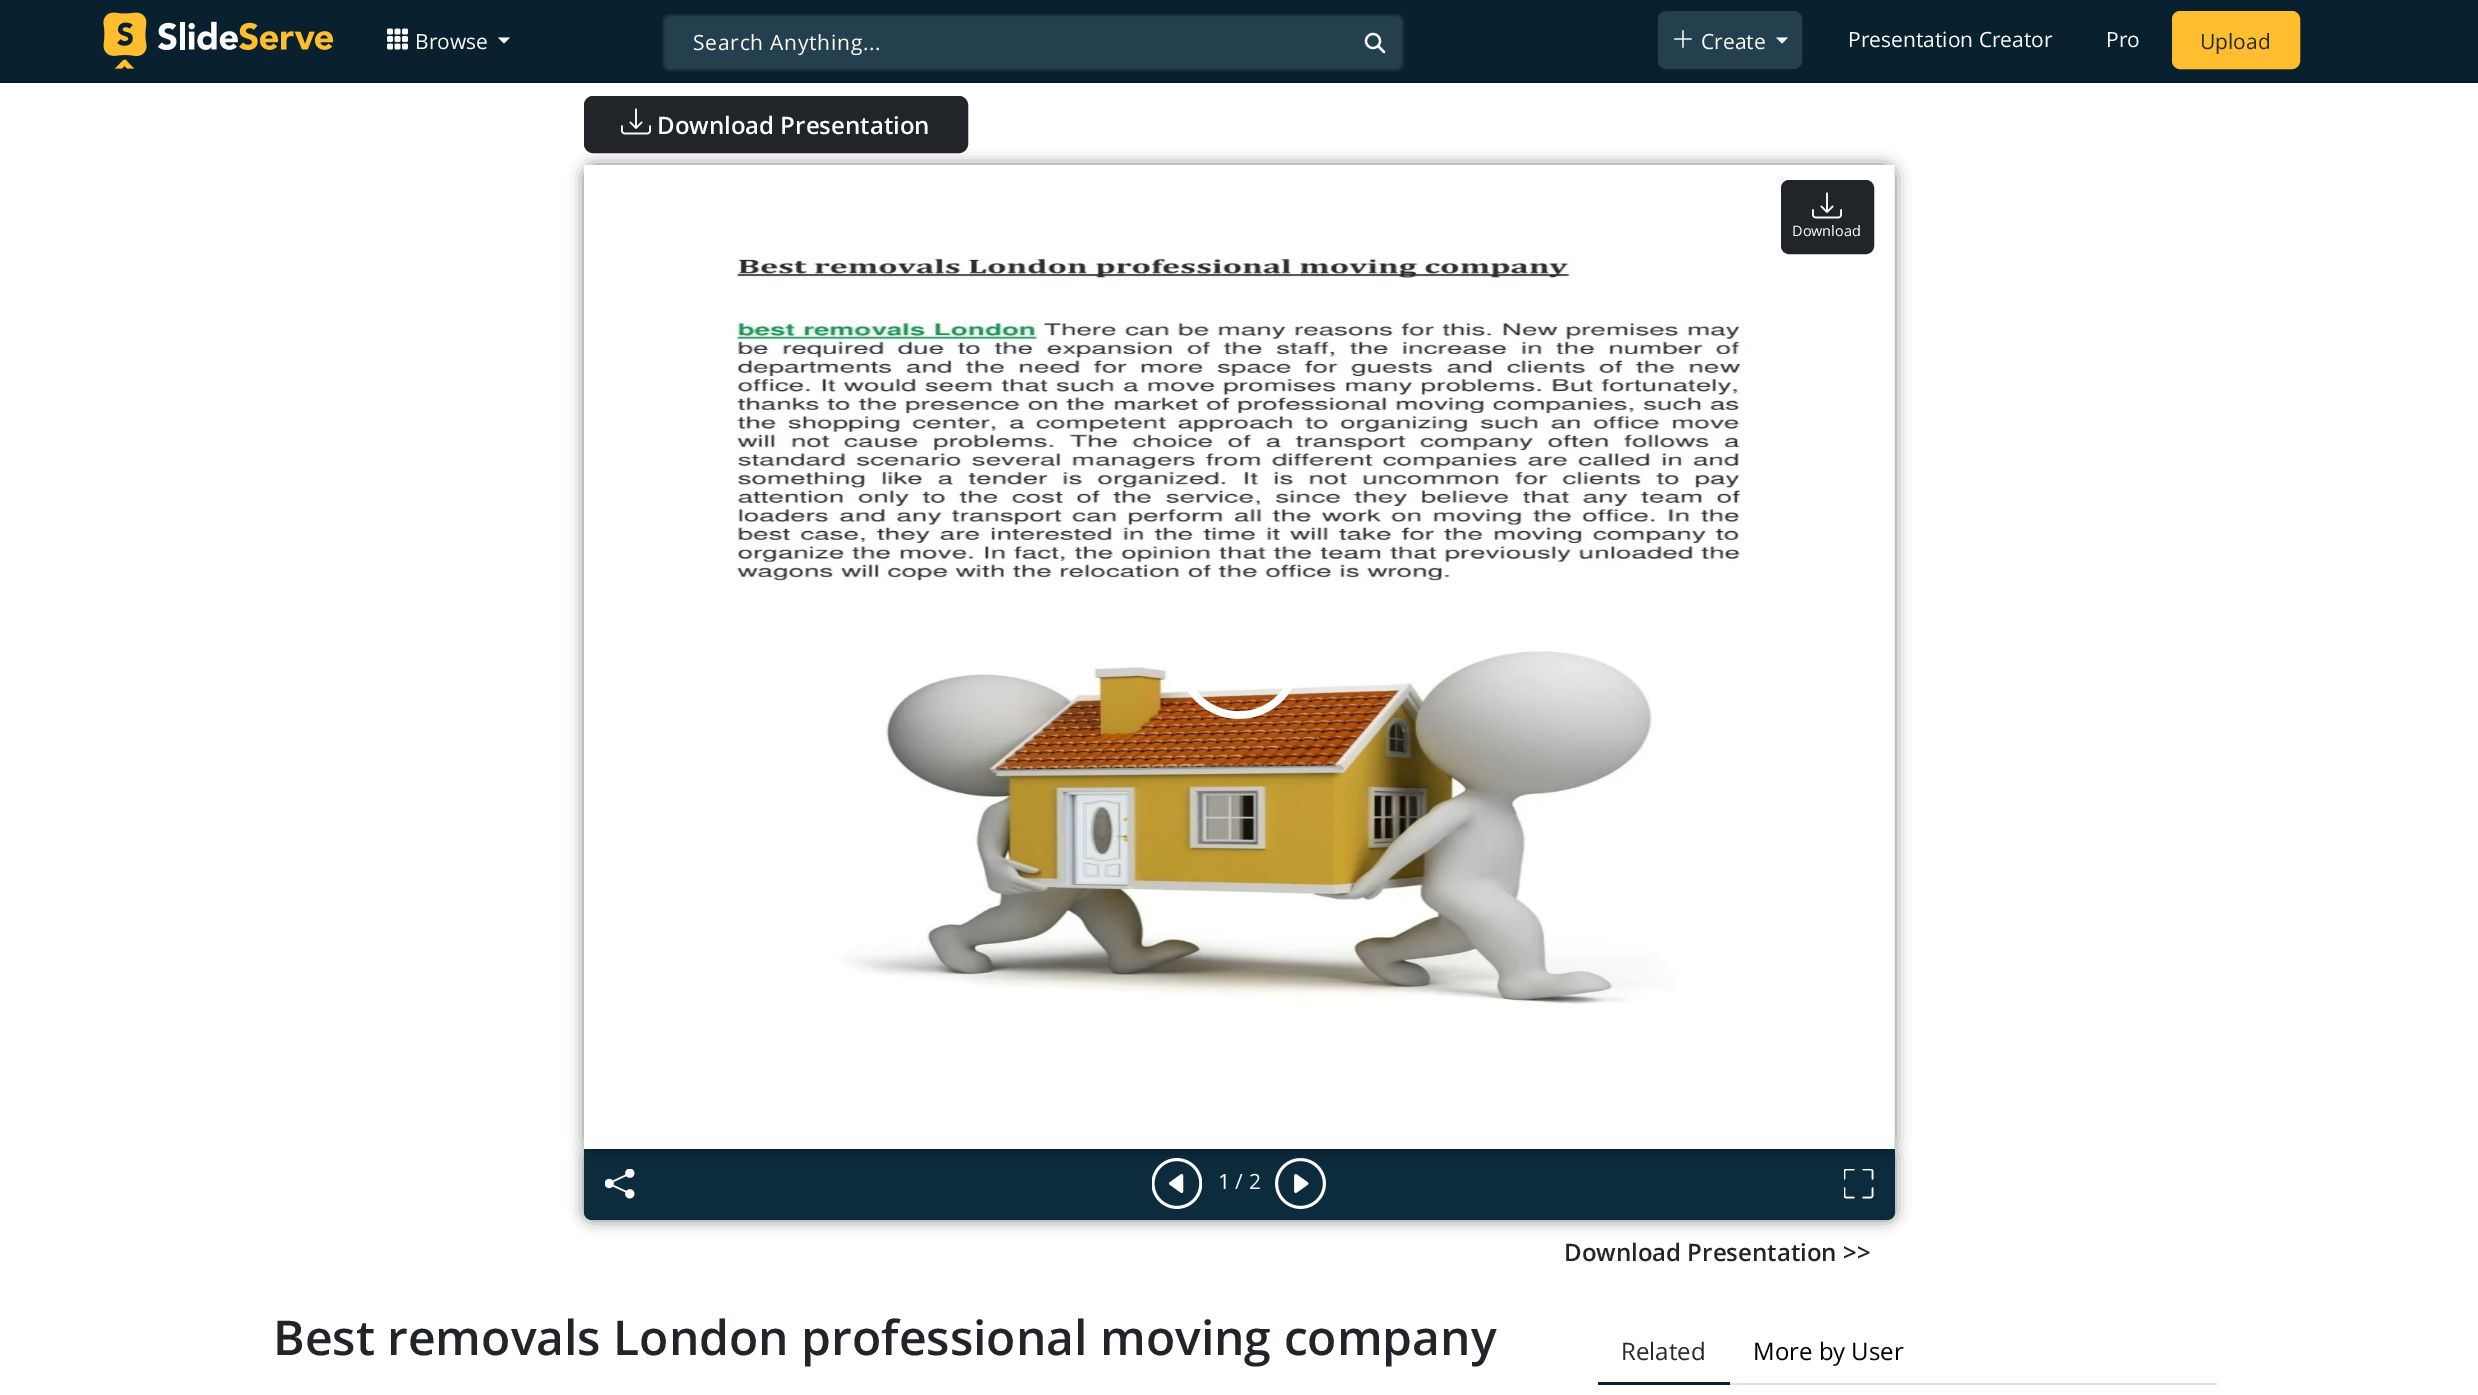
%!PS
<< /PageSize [2478 1395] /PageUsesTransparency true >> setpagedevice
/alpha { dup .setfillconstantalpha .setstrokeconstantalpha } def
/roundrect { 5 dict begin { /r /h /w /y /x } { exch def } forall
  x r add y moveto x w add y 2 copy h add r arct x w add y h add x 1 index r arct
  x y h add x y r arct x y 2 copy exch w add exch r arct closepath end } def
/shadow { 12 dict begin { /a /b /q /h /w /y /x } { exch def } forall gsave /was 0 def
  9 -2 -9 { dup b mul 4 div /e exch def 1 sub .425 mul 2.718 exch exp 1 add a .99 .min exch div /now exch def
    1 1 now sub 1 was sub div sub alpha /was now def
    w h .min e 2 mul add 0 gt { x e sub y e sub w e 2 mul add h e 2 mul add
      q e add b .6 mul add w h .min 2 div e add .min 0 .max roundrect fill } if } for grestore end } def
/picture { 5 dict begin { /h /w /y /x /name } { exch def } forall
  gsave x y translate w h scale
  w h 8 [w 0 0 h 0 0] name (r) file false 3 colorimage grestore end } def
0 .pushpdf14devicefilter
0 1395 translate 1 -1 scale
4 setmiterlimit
1 setgray
0 0 2478 1395 rectfill
0.035 0.129 0.18 setrgbcolor
0 0 2478 81 rectfill
0.024 0.098 0.141 setrgbcolor
0 81 2478 2 rectfill
(img1.rgb) 103 12 231 57 picture
(img2.rgb) 387 28 21 22 picture
/OpenSans-Regular [21 0 0 -21 0 0] selectfont
1 setgray
415 49 moveto (Browse) show
newpath 498 37.5 moveto 510 37.5 lineto 504 43.5 lineto closepath fill
0.141 0.247 0.306 setrgbcolor
1659 12 142 56 7 roundrect gsave fill grestore
2 setlinewidth
stroke
(img3.rgb) 1674 30 18 18 picture
1 setgray
1701 49 moveto (Create) show
newpath 1776 37.5 moveto 1788 37.5 lineto 1782 43.5 lineto closepath fill
1848 47 moveto (Presentation Creator) show
2106 47 moveto (Pro) show
1 0.745 0.184 setrgbcolor
2173 12 126 56 7 roundrect gsave fill grestore
stroke
0.169 0.165 0.165 setrgbcolor
2200 49 moveto (Upload) show
0.141 0.247 0.306 setrgbcolor
662 14 742 57 8 roundrect fill
1 setgray
2.2 setlinewidth
newpath 1373 41 7 0 360 arc closepath stroke
1 setlinecap
1 setlinejoin
newpath 1384 52 moveto 1378 46 lineto stroke
0.082 0.18 0.251 setrgbcolor
2 setlinewidth
0 setlinecap
0 setlinejoin
663 15 740 55 7 roundrect stroke
1 setgray
693 50 moveto 0.75 0 (Search Anything...) ashow
0.129 0.145 0.161 setrgbcolor
585 97 382 55 8 roundrect gsave fill grestore
stroke
(img4.rgb) 621 108 30 27 picture
/OpenSans-SemiBold [24 0 0 -24 0 0] selectfont
1 setgray
657 134 moveto (Download Presentation) show
0 setgray
584 1149 1311 71 8 7.5 0.5 shadow
0.047 0.169 0.239 setrgbcolor
newpath 584 1149 moveto 1895 1149 lineto 1895 1212 lineto 1895 1216.5 1891.5 1220 1887 1220 curveto 592 1220 lineto 587.5 1220 584 1216.5 584 1212 curveto closepath fill
(img7.rgb) 605 1169 30 30 picture
(img9.rgb) 1275 1158 51 51 picture
(img10.rgb) 1844 1169 30 30 picture
0 setgray
584 165 1311 984 11 7.5 0.5 shadow
(img5.rgb) 584 165 1311 984 picture
0.129 0.145 0.161 setrgbcolor
1782 181 91 72 7 roundrect gsave fill grestore
stroke
(img4.rgb) 1812 192 30 27 picture
/OpenSans-Regular [14.5 0 0 -14.5 0 0] selectfont
1 setgray
1792 236 moveto (Download) show
(img6.rgb) 1187 688 106 31 picture
(img8.rgb) 1152 1158 50 51 picture
/OpenSans-Regular [21 0 0 -21 0 0] selectfont
1218 1189 moveto (1 / 2) show
/OpenSans-SemiBold [24 0 0 -24 0 0] selectfont
0.129 0.145 0.161 setrgbcolor
1564 1261 moveto (Download Presentation >>) show
/OpenSans-SemiBold [48 0 0 -48 0 0] selectfont
273 1355 moveto (Best removals London professional moving company) show
0.871 0.886 0.902 setrgbcolor
1730 1383 487 2 rectfill
0.035 0.129 0.18 setrgbcolor
1598 1382 132 3 rectfill
/OpenSans-Regular [24 0 0 -24 0 0] selectfont
0.169 0.165 0.165 setrgbcolor
1621 1360 moveto (Related) show
0 setgray
1753 1360 moveto (More by User) show
.poppdf14devicefilter showpage
